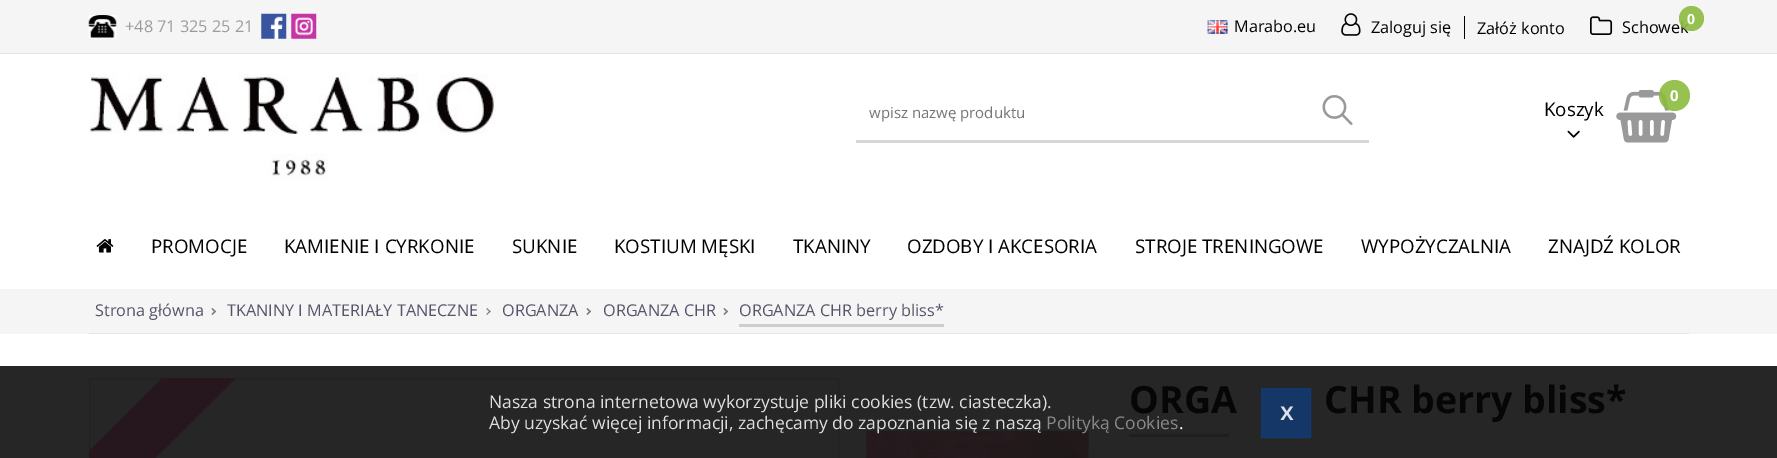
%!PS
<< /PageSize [1777 458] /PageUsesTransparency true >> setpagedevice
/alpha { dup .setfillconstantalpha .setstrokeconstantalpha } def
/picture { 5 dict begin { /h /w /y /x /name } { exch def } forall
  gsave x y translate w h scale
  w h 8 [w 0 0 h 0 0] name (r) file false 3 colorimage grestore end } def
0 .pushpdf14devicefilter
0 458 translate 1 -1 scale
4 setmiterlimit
1 setgray
0 0 1777 458 rectfill
0.149 setgray
0 366 1777 92 rectfill
0.961 setgray
0 0 1777 53 rectfill
0.89 setgray
0 53 1777 1 rectfill
(img1.rgb) 88 15 29 23 picture
/OpenSans-Regular [16.25 0 0 -16.25 0 0] selectfont
0.608 setgray
125 32 moveto (+48 71 325 25 21) show
(img2.rgb) 261 13 26 26 picture
(img3.rgb) 291 13 26 26 picture
(img4.rgb) 1207 20 21 14 picture
0 setgray
1234 32 moveto (Marabo.eu) show
(img5.rgb) 1341 13 20 23 picture
1371 33 moveto (Zaloguj się) show
1477 34 moveto (Załóż konto) show
1464 16 1 23 rectfill
(img6.rgb) 1590 16 23 19 picture
1622 33 moveto (Schowek) show
0.9 alpha
0.549 0.733 0.247 setrgbcolor
newpath 1691.5 18.5 12.5 0 360 arc closepath fill
/OpenSans-Bold [14 0 0 -14 0 0] selectfont
1 alpha
0.996 setgray
1687 24 moveto (0) show
(img7.rgb) 89 74 407 107 picture
0.839 setgray
856 140 513 3 rectfill
/OpenSans-Regular [15 0 0 -15 0 0] selectfont
0.459 setgray
869 118 moveto (wpisz nazwę produktu) show
(img8.rgb) 1322 95 31 30 picture
(img10.rgb) 1616 90 61 53 picture
0.9 alpha
0.549 0.733 0.247 setrgbcolor
newpath 1674.5 95.5 15.5 0 360 arc closepath fill
/OpenSans-Bold [15 0 0 -15 0 0] selectfont
1 alpha
0.996 setgray
1670 101 moveto (0) show
/OpenSans-Regular [18.75 0 0 -18.75 0 0] selectfont
0 setgray
1544 116 moveto (Koszyk) show
(img9.rgb) 1567 130 13 8 picture
(img11.rgb) 96 239 18 14 picture
151 253 moveto (PROMOCJE) show
284 253 moveto (KAMIENIE I CYRKONIE) show
512 253 moveto (SUKNIE) show
614 253 moveto (KOSTIUM MĘSKI) show
793 253 moveto (TKANINY) show
907 253 moveto (OZDOBY I AKCESORIA) show
1135 253 moveto (STROJE TRENINGOWE) show
1361 253 moveto (WYPOŻYCZALNIA) show
1548 253 moveto (ZNAJDŹ KOLOR) show
0.961 setgray
0 289 1777 45 rectfill
0.898 setgray
89 333 1600 1 rectfill
/OpenSans-Regular [16.25 0 0 -16.25 0 0] selectfont
0.349 0.325 0.416 setrgbcolor
95 316 moveto (Strona główna) show
0.49 setgray
newpath 212.5 308 moveto 216 311.5 lineto 215 312.5 lineto 211.5 309 lineto closepath fill
newpath 215 310.5 moveto 216 311.5 lineto 212.5 315 lineto 211.5 314 lineto closepath fill
0.349 0.325 0.416 setrgbcolor
227 316 moveto (TKANINY I MATERIAŁY TANECZNE) show
0.49 setgray
newpath 487 308 moveto 490.5 311.5 lineto 490 312.5 lineto 486.5 309 lineto closepath fill
newpath 490 310.5 moveto 490.5 311.5 lineto 487 315 lineto 486.5 314 lineto closepath fill
0.349 0.325 0.416 setrgbcolor
502 316 moveto (ORGANZA) show
0.49 setgray
newpath 587.5 308 moveto 591 311.5 lineto 590 312.5 lineto 586.5 309 lineto closepath fill
newpath 590 310.5 moveto 591 311.5 lineto 587.5 315 lineto 586.5 314 lineto closepath fill
0.349 0.325 0.416 setrgbcolor
603 316 moveto (ORGANZA CHR) show
0.49 setgray
newpath 724.5 308 moveto 728 311.5 lineto 727 312.5 lineto 723.5 309 lineto closepath fill
newpath 727 310.5 moveto 728 311.5 lineto 724.5 315 lineto 723.5 314 lineto closepath fill
0.808 setgray
739 324 205 3 rectfill
0.349 0.325 0.416 setrgbcolor
739 316 moveto (ORGANZA CHR berry bliss*) show
0.129 setgray
89.5 378.5 749 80 rectstroke
/OpenSans-Regular [17.5 0 0 -17.5 0 0] selectfont
0.871 setgray
489 408 moveto (Nasza strona internetowa wykorzystuje pliki cookies \(tzw. ciasteczka\).) show
(img13.rgb) 866 430 223 28 picture
489 429 moveto (Aby uzyskać więcej informacji, zachęcamy do zapoznania się z naszą) show
0.537 setgray
1046 429 moveto (Polityką Cookies) show
0.996 setgray
1179 429 moveto (.) show
0.85 alpha
0.067 0.227 0.447 setrgbcolor
1261 388 50 50 rectfill
1261.5 388.5 49 49 rectstroke
/OpenSans-SemiBold [25 0 0 -25 0 0] selectfont
1 alpha
0.863 0.882 0.91 setrgbcolor
1280 420 moveto (x) show
(img12.rgb) 90 378 748 1 picture
gsave
89 378 750 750 rectclip
0.145 0.09 0.114 setrgbcolor
newpath 38 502 moveto 215 325 lineto 252 362 lineto 75 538 lineto closepath fill
grestore
/OpenSans-Bold [37.5 0 0 -37.5 0 0] selectfont
0.024 setgray
1129 413 moveto (ORGA) show
1324 413 moveto (CHR berry bliss*) show
0.122 setgray
1129 434 100 3 rectfill
.poppdf14devicefilter showpage
